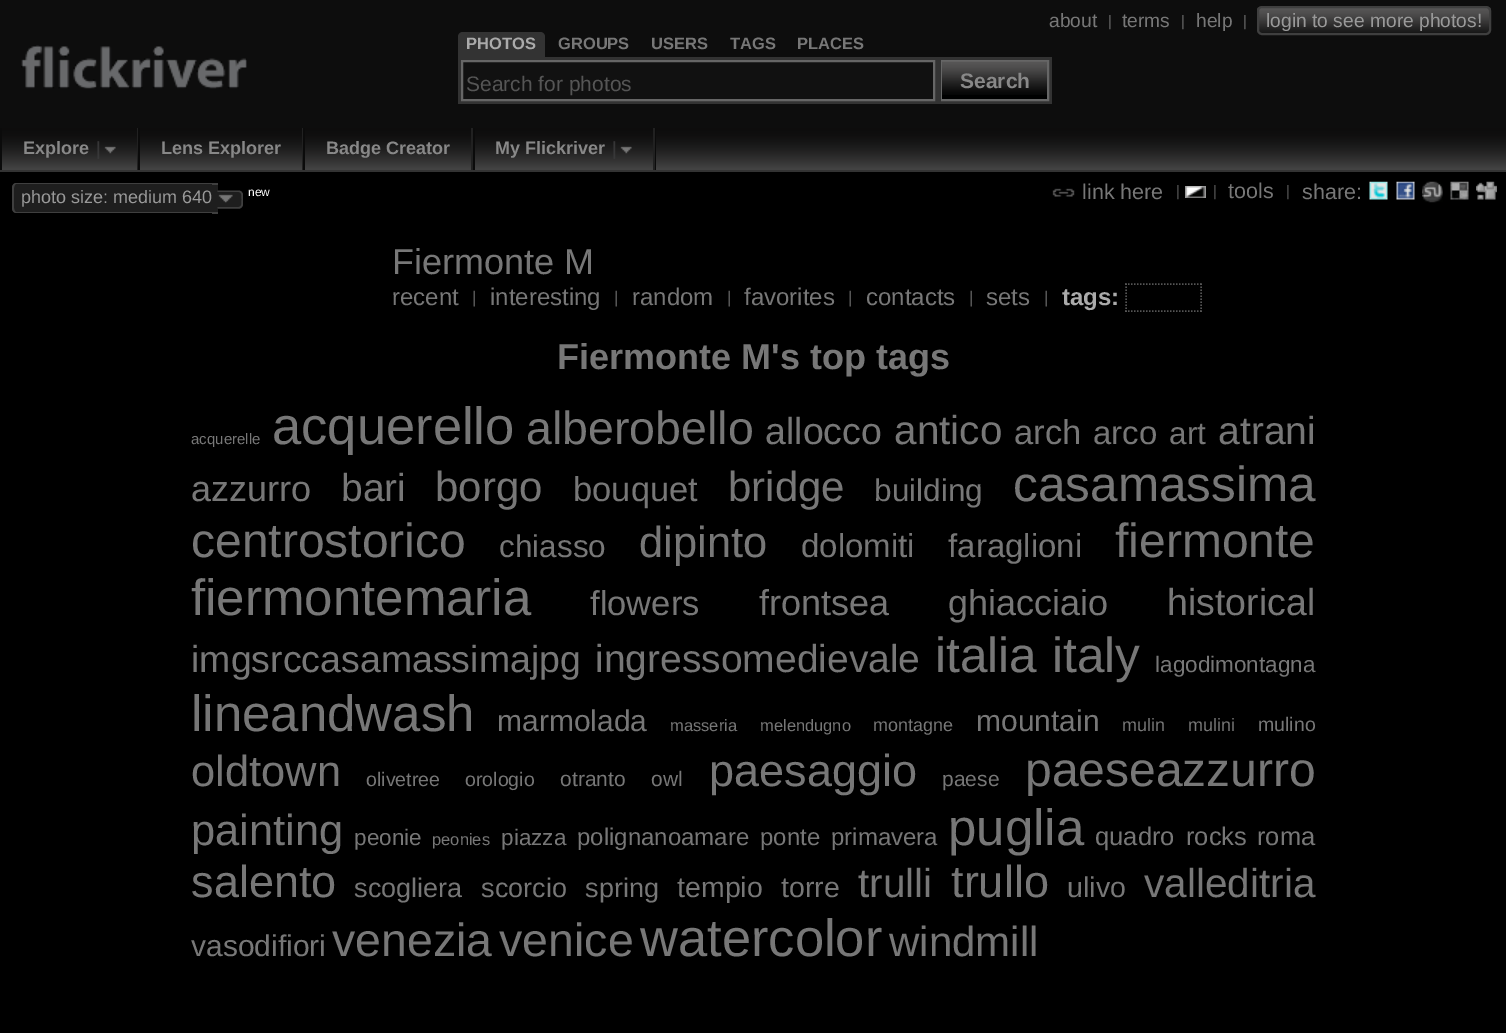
%!PS
<< /PageSize [1506 1033] >> setpagedevice
/roundrect { 5 dict begin { /r /h /w /y /x } { exch def } forall
  x r add y moveto x w add y 2 copy h add r arct x w add y h add x 1 index r arct
  x y h add x y r arct x y 2 copy exch w add exch r arct closepath end } def
/picture { 5 dict begin { /h /w /y /x /name } { exch def } forall
  gsave x y translate w h scale
  w h 8 [w 0 0 h 0 0] name (r) file false 3 colorimage grestore end } def
0 1033 translate 1 -1 scale
4 setmiterlimit
0 setgray
0 0 1506 1033 rectfill
0.051 setgray
0 0 1506 128 rectfill
/LiberationSans-Regular [19.25 0 0 -19.25 0 0] selectfont
0.467 setgray
1049 27 moveto (about) show
1196 27 moveto (help) show
(img1.rgb) 1257 7 234 28 picture
/LiberationSans-Regular [15 0 0 -15 0 0] selectfont
0.4 setgray
1108 26 moveto (|) show
/LiberationSans-Regular [19.25 0 0 -19.25 0 0] selectfont
0.467 setgray
1122 27 moveto (terms) show
/LiberationSans-Regular [15 0 0 -15 0 0] selectfont
0.4 setgray
1181 26 moveto (|) show
1243 26 moveto (|) show
0.247 setgray
2 setlinewidth
1258 7 232 27 4 roundrect stroke
/LiberationSans-Regular [19.25 0 0 -19.25 0 0] selectfont
0.6 setgray
1266 27 moveto (login to see more photos!) show
(img2.rgb) 21 45 226 44 picture
0.2 setgray
newpath 463 32 moveto 540 32 lineto 543 32 545 34 545 37 curveto 545 57 lineto 458 57 lineto 458 37 lineto 458 34 460 32 463 32 curveto closepath fill
/LiberationSans-Bold [16.5 0 0 -16.5 0 0] selectfont
0.667 setgray
466 49 moveto (PHOTOS) show
0.467 setgray
558 49 moveto (GROUPS) show
651 49 moveto (USERS) show
730 49 moveto (TAGS) show
797 49 moveto (PLACES) show
0.2 setgray
458 57 594 47 rectfill
0.067 setgray
newpath 462 61 moveto 934 61 lineto 934 100 lineto 462 100 lineto closepath gsave fill grestore
0.4 setgray
stroke
/LiberationSans-Regular [21 0 0 -21 0 0] selectfont
0.333 setgray
466 91 moveto (Search for photos) show
0.4 setgray
942 61 106 39 rectstroke
0 setgray
942 95 105 4 rectfill
(img3.rgb) 942 61 105 34 picture
/LiberationSans-Bold [21 0 0 -21 0 0] selectfont
0.533 setgray
960 88 moveto (Search) show
(img4.rgb) 2 128 1504 42 picture
0.2 setgray
0 170 1506 2 rectfill
0.043 setgray
655 128 1 42 rectfill
0.129 setgray
137 128 1 42 rectfill
0.043 setgray
0 128 2 42 rectfill
/LiberationSans-Bold [18 0 0 -18 0 0] selectfont
0.533 setgray
23 154 moveto (Explore) show
(img5.rgb) 97 141 19 18 picture
0.129 setgray
302 128 1 42 rectfill
0.043 setgray
138 128 2 42 rectfill
0.533 setgray
161 154 moveto (Lens Explorer) show
0.129 setgray
471 128 2 42 rectfill
0.043 setgray
303 128 2 42 rectfill
0.533 setgray
326 154 moveto (Badge Creator) show
0.129 setgray
653 128 2 42 rectfill
0.043 setgray
473 128 2 42 rectfill
0.533 setgray
495 154 moveto (My Flickriver) show
(img5.rgb) 613 141 19 18 picture
0.118 setgray
newpath 17 183 moveto 212 183 lineto 212 213 lineto 17 213 lineto 14 213 12 211 12 208 curveto 12 188 lineto 12 185 14 183 17 183 curveto closepath fill
0.247 setgray
newpath 16 183 moveto 212 183 lineto 212 213 lineto 16 213 lineto 14 213 12 211 12 208 curveto 12 188 lineto 12 185 14 183 16 183 curveto closepath 16 184 moveto 212 184 lineto 212 212 lineto 16 212 lineto 15 212 14 210 14 208 curveto 14 188 lineto 14 186 15 184 16 184 curveto closepath eofill
/LiberationSans-Regular [18 0 0 -18 0 0] selectfont
0.6 setgray
21 203 moveto (photo size: medium 640) show
0.118 setgray
212 183 6 30 rectfill
0.247 setgray
212 183 6 2 rectfill
212 212 6 2 rectfill
0.118 setgray
newpath 218 191 moveto 238 191 lineto 241 191 243 193 243 196 curveto 243 204 lineto 243 207 241 209 238 209 curveto 218 209 lineto closepath fill
0.247 setgray
newpath 217.5 190.5 moveto 238.5 190.5 lineto 241 190.5 243 192.5 243 195 curveto 243 204 lineto 243 206.5 241 208.5 238.5 208.5 curveto 217.5 208.5 lineto closepath 217.5 192 moveto 231.5 192 lineto 241 192 241.5 190.5 241.5 199.5 curveto 241.5 208.5 241 207 231.5 207 curveto 217.5 207 lineto closepath eofill
/LiberationSans-Regular [12 0 0 -12 0 0] selectfont
1 setgray
248 196 moveto (new) show
(img6.rgb) 218 194 15 9 picture
(img7.rgb) 1052 188 23 9 picture
/LiberationSans-Regular [21.5 0 0 -21.5 0 0] selectfont
0.467 setgray
1082 199 moveto (link here) show
/LiberationSans-Regular [15 0 0 -15 0 0] selectfont
0.333 setgray
1176 196 moveto (|) show
(img8.rgb) 1185 186 21 12 picture
1213 196 moveto (|) show
/LiberationSans-Regular [21.5 0 0 -21.5 0 0] selectfont
0.467 setgray
1228 198 moveto (tools) show
/LiberationSans-Regular [15 0 0 -15 0 0] selectfont
0.333 setgray
1286 196 moveto (|) show
/LiberationSans-Regular [21.5 0 0 -21.5 0 0] selectfont
0.467 setgray
1302 199 moveto (share:) show
(img9.rgb) 1369 181 19 19 picture
(img10.rgb) 1396 181 19 19 picture
(img11.rgb) 1422 181 21 22 picture
(img12.rgb) 1450 181 19 19 picture
(img13.rgb) 1476 181 21 19 picture
/LiberationSans-Regular [36 0 0 -36 0 0] selectfont
392 274 moveto (Fiermonte M) show
/LiberationSans-Regular [24 0 0 -24 0 0] selectfont
392 305 moveto (recent) show
/LiberationSans-Regular [17 0 0 -17 0 0] selectfont
0.333 setgray
472 303 moveto (|) show
/LiberationSans-Regular [24 0 0 -24 0 0] selectfont
0.467 setgray
490 305 moveto (interesting) show
/LiberationSans-Regular [17 0 0 -17 0 0] selectfont
0.333 setgray
614 303 moveto (|) show
/LiberationSans-Regular [24 0 0 -24 0 0] selectfont
0.467 setgray
632 305 moveto (random) show
/LiberationSans-Regular [17 0 0 -17 0 0] selectfont
0.333 setgray
727 303 moveto (|) show
/LiberationSans-Regular [24 0 0 -24 0 0] selectfont
0.467 setgray
744 305 moveto (favorites) show
/LiberationSans-Regular [17 0 0 -17 0 0] selectfont
0.333 setgray
848 303 moveto (|) show
/LiberationSans-Regular [24 0 0 -24 0 0] selectfont
0.467 setgray
866 305 moveto (contacts) show
/LiberationSans-Regular [17 0 0 -17 0 0] selectfont
0.333 setgray
969 303 moveto (|) show
/LiberationSans-Regular [24 0 0 -24 0 0] selectfont
0.467 setgray
986 305 moveto (sets) show
/LiberationSans-Regular [17 0 0 -17 0 0] selectfont
0.333 setgray
1044 303 moveto (|) show
/LiberationSans-Bold [24 0 0 -24 0 0] selectfont
0.667 setgray
1062 305 moveto (tags:) show
0.333 setgray
1.5 setlinewidth
[1.5 1.5] 0 setdash
newpath 1125 284 moveto 1201.5 284 lineto stroke
newpath 1201 283.5 moveto 1201 312 lineto stroke
newpath 1125 311 moveto 1201.5 311 lineto stroke
newpath 1126 283.5 moveto 1126 312 lineto stroke
/LiberationSans-Bold [36 0 0 -36 0 0] selectfont
0.467 setgray
557 369 moveto (Fiermonte M's top tags) show
/LiberationSans-Regular [15 0 0 -15 0 0] selectfont
191 444 moveto (acquerelle) show
/LiberationSans-Regular [52.5 0 0 -52.5 0 0] selectfont
272 444 moveto (acquerello) show
/LiberationSans-Regular [46.5 0 0 -46.5 0 0] selectfont
526 444 moveto (alberobello) show
/LiberationSans-Regular [37.5 0 0 -37.5 0 0] selectfont
765 444 moveto (allocco) show
/LiberationSans-Regular [40.5 0 0 -40.5 0 0] selectfont
894 444 moveto (antico) show
/LiberationSans-Regular [34.5 0 0 -34.5 0 0] selectfont
1014 444 moveto (arch) show
/LiberationSans-Regular [33 0 0 -33 0 0] selectfont
1093 444 moveto (arco) show
/LiberationSans-Regular [31.5 0 0 -31.5 0 0] selectfont
1169 444 moveto (art) show
/LiberationSans-Regular [39 0 0 -39 0 0] selectfont
1218 444 moveto (atrani) show
/LiberationSans-Regular [36 0 0 -36 0 0] selectfont
191 501 moveto (azzurro) show
/LiberationSans-Regular [39 0 0 -39 0 0] selectfont
341 501 moveto (bari) show
/LiberationSans-Regular [42 0 0 -42 0 0] selectfont
435 501 moveto (borgo) show
/LiberationSans-Regular [34.5 0 0 -34.5 0 0] selectfont
573 501 moveto (bouquet) show
/LiberationSans-Regular [42 0 0 -42 0 0] selectfont
728 501 moveto (bridge) show
/LiberationSans-Regular [31.5 0 0 -31.5 0 0] selectfont
874 501 moveto (building) show
/LiberationSans-Regular [49.5 0 0 -49.5 0 0] selectfont
1013 501 moveto (casamassima) show
/LiberationSans-Regular [48 0 0 -48 0 0] selectfont
191 557 moveto (centrostorico) show
/LiberationSans-Regular [31.5 0 0 -31.5 0 0] selectfont
499 557 moveto (chiasso) show
/LiberationSans-Regular [43.5 0 0 -43.5 0 0] selectfont
639 557 moveto (dipinto) show
/LiberationSans-Regular [33 0 0 -33 0 0] selectfont
801 557 moveto (dolomiti) show
948 557 moveto (faraglioni) show
/LiberationSans-Regular [48 0 0 -48 0 0] selectfont
1115 557 moveto (fiermonte) show
/LiberationSans-Regular [51 0 0 -51 0 0] selectfont
191 615 moveto (fiermontemaria) show
/LiberationSans-Regular [34.5 0 0 -34.5 0 0] selectfont
590 615 moveto (flowers) show
/LiberationSans-Regular [36 0 0 -36 0 0] selectfont
759 615 moveto (frontsea) show
948 615 moveto (ghiacciaio) show
/LiberationSans-Regular [37.5 0 0 -37.5 0 0] selectfont
1167 615 moveto (historical) show
191 672 moveto (imgsrccasamassimajpg) show
/LiberationSans-Regular [39 0 0 -39 0 0] selectfont
595 672 moveto (ingressomedievale) show
/LiberationSans-Regular [49.5 0 0 -49.5 0 0] selectfont
935 672 moveto (italia) show
1052 672 moveto (italy) show
/LiberationSans-Regular [22.5 0 0 -22.5 0 0] selectfont
1155 672 moveto (lagodimontagna) show
/LiberationSans-Regular [51 0 0 -51 0 0] selectfont
191 731 moveto (lineandwash) show
/LiberationSans-Regular [30 0 0 -30 0 0] selectfont
497 731 moveto (marmolada) show
/LiberationSans-Regular [16.5 0 0 -16.5 0 0] selectfont
670 731 moveto (masseria) show
760 731 moveto (melendugno) show
/LiberationSans-Regular [18 0 0 -18 0 0] selectfont
873 731 moveto (montagne) show
/LiberationSans-Regular [30 0 0 -30 0 0] selectfont
976 731 moveto (mountain) show
/LiberationSans-Regular [18 0 0 -18 0 0] selectfont
1122 731 moveto (mulin) show
1188 731 moveto (mulini) show
/LiberationSans-Regular [19.5 0 0 -19.5 0 0] selectfont
1258 731 moveto (mulino) show
/LiberationSans-Regular [43.5 0 0 -43.5 0 0] selectfont
191 786 moveto (oldtown) show
/LiberationSans-Regular [19.5 0 0 -19.5 0 0] selectfont
366 786 moveto (olivetree) show
465 786 moveto (orologio) show
/LiberationSans-Regular [21 0 0 -21 0 0] selectfont
560 786 moveto (otranto) show
651 786 moveto (owl) show
/LiberationSans-Regular [45 0 0 -45 0 0] selectfont
709 786 moveto (paesaggio) show
/LiberationSans-Regular [21 0 0 -21 0 0] selectfont
942 786 moveto (paese) show
/LiberationSans-Regular [48 0 0 -48 0 0] selectfont
1025 786 moveto (paeseazzurro) show
/LiberationSans-Regular [43.5 0 0 -43.5 0 0] selectfont
191 845 moveto (painting) show
/LiberationSans-Regular [22.5 0 0 -22.5 0 0] selectfont
354 845 moveto (peonie) show
/LiberationSans-Regular [16.5 0 0 -16.5 0 0] selectfont
432 845 moveto (peonies) show
/LiberationSans-Regular [22.5 0 0 -22.5 0 0] selectfont
501 845 moveto (piazza) show
/LiberationSans-Regular [24 0 0 -24 0 0] selectfont
577 845 moveto (polignanoamare) show
760 845 moveto (ponte) show
831 845 moveto (primavera) show
/LiberationSans-Regular [51 0 0 -51 0 0] selectfont
948 845 moveto (puglia) show
/LiberationSans-Regular [25.5 0 0 -25.5 0 0] selectfont
1095 845 moveto (quadro) show
1186 845 moveto (rocks) show
1257 845 moveto (roma) show
/LiberationSans-Regular [45 0 0 -45 0 0] selectfont
191 897 moveto (salento) show
/LiberationSans-Regular [27 0 0 -27 0 0] selectfont
354 897 moveto (scogliera) show
481 897 moveto (scorcio) show
585 897 moveto (spring) show
/LiberationSans-Regular [28.5 0 0 -28.5 0 0] selectfont
677 897 moveto (tempio) show
781 897 moveto (torre) show
/LiberationSans-Regular [40.5 0 0 -40.5 0 0] selectfont
858 897 moveto (trulli) show
/LiberationSans-Regular [45 0 0 -45 0 0] selectfont
951 897 moveto (trullo) show
/LiberationSans-Regular [28.5 0 0 -28.5 0 0] selectfont
1067 897 moveto (ulivo) show
/LiberationSans-Regular [40.5 0 0 -40.5 0 0] selectfont
1144 897 moveto (valleditria) show
/LiberationSans-Regular [30 0 0 -30 0 0] selectfont
191 956 moveto (vasodifiori) show
/LiberationSans-Regular [46.5 0 0 -46.5 0 0] selectfont
332 956 moveto (venezia) show
499 956 moveto (venice) show
/LiberationSans-Regular [52.5 0 0 -52.5 0 0] selectfont
640 956 moveto (watercolor) show
/LiberationSans-Regular [42 0 0 -42 0 0] selectfont
889 956 moveto (windmill) show
showpage
